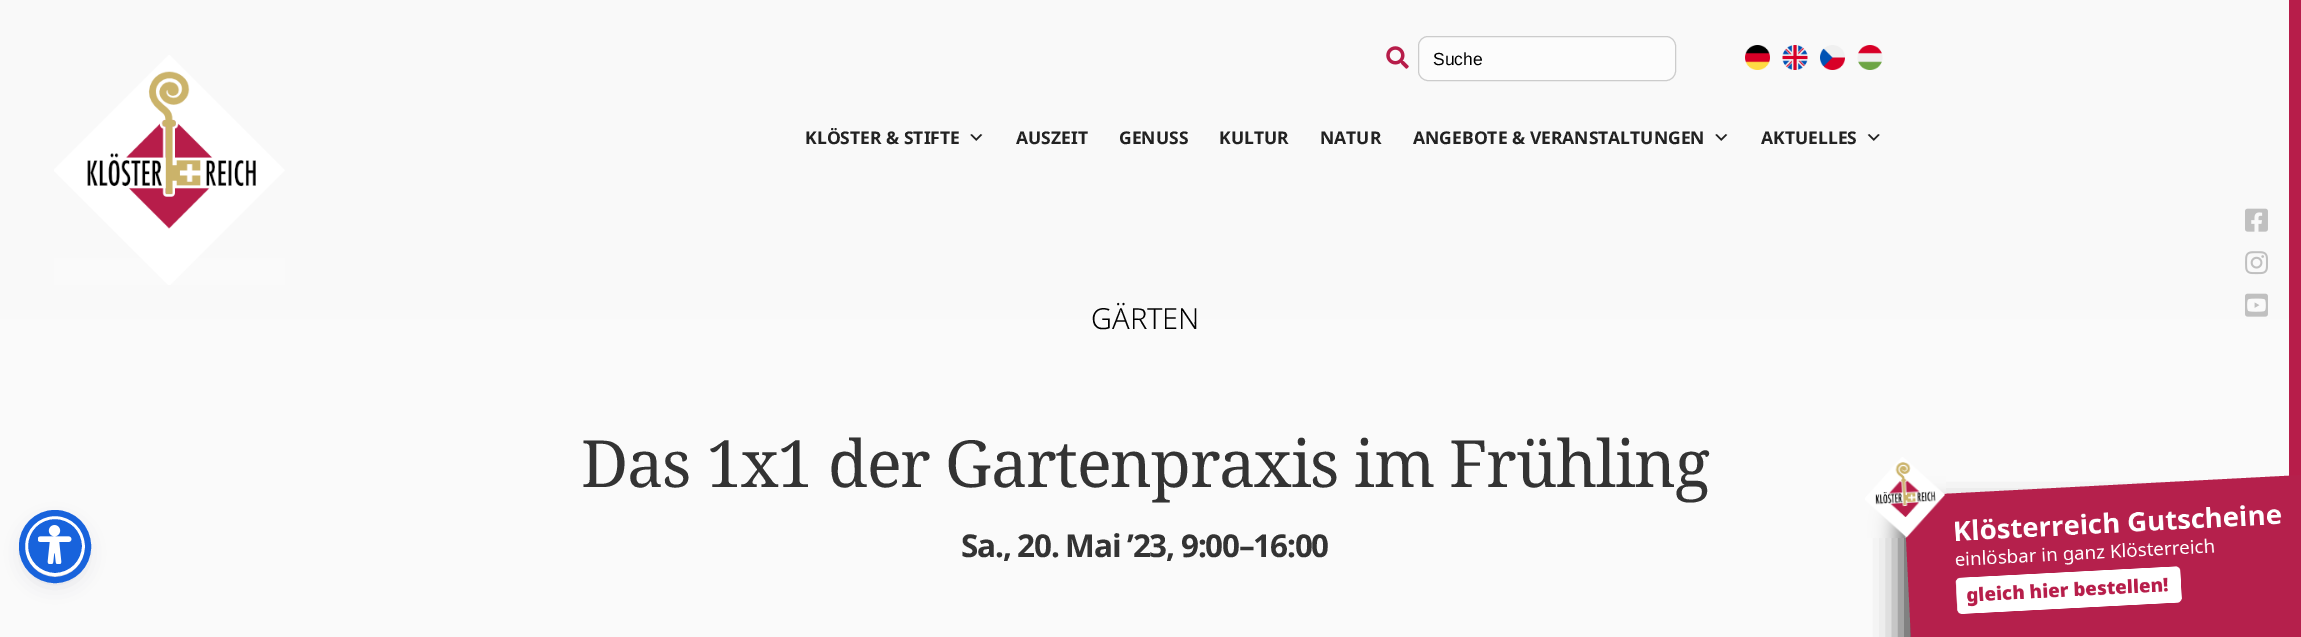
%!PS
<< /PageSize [2301 637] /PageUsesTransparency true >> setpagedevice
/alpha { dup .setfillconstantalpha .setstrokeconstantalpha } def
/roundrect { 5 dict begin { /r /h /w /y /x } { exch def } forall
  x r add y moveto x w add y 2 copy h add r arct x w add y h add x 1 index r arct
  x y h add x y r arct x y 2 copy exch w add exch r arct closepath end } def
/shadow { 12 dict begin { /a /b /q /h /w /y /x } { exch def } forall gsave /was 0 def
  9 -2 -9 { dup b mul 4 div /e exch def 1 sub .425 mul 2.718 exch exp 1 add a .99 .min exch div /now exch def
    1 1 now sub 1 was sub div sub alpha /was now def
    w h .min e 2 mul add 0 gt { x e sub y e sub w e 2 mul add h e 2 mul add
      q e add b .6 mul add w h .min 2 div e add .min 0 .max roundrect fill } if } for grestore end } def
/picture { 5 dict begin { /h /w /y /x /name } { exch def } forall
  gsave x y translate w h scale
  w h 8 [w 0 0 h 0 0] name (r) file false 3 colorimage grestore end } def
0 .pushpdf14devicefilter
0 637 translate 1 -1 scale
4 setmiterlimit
0.718 0.114 0.29 setrgbcolor
0 0 2301 637 rectfill
gsave newpath 0 0 moveto 2289 0 lineto 2289 637 lineto 0 637 lineto closepath clip newpath
<< /ShadingType 2 /ColorSpace /DeviceRGB /Coords [1144 0 1144 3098] /Extend [true true] /Function << /FunctionType 2 /Domain [0 1] /C0 [0.976 0.976 0.976] /C1 [1 1 1] /N 1 >> >> shfill grestore
0.365 0.392 0.58 setrgbcolor
25 519 60 60 30 2.5 0.2 shadow
0.145 0.173 0.38 setrgbcolor
25 523 60 60 30 9.5 0.15 shadow
0.094 0.388 0.863 setrgbcolor
newpath 55 546 28.5 0 360 arc closepath gsave fill grestore
1 setgray
3 setlinewidth
stroke
0.094 0.388 0.863 setrgbcolor
6 setlinewidth
22 513 66 67 33 roundrect stroke
(img1.rgb) 38 525 34 39 picture
(img2.rgb) 54 55 231 230 picture
(img3.rgb) 1386 46 23 23 picture
0.988 setgray
1418.5 36.5 257 44 9.5 roundrect gsave fill grestore
0.8 setgray
1 setlinewidth
stroke
/LiberationSans-Regular [17.5 0 0 -17.5 0 0] selectfont
0 setgray
1433 65 moveto (Suche) show
(img4.rgb) 1745 45 25 25 picture
(img5.rgb) 1782 45 26 25 picture
(img6.rgb) 1820 45 25 25 picture
(img7.rgb) 1857 45 26 25 picture
/NotoSans-Bold [17.5 0 0 -17.5 0 0] selectfont
0.133 setgray
805 144 moveto (KLÖSTER & STIFTE) show
(img8.rgb) 970 134 13 7 picture
1016 144 moveto (AUSZEIT) show
1119 144 moveto (GENUSS) show
1219 144 moveto (KULTUR) show
1320 144 moveto (NATUR) show
1413 144 moveto (ANGEBOTE & VERANSTALTUNGEN) show
(img8.rgb) 1715 134 13 7 picture
1761 144 moveto (AKTUELLES) show
(img9.rgb) 1867 134 13 7 picture
(img10.rgb) 2245 208 23 24 picture
(img11.rgb) 2245 251 23 24 picture
(img12.rgb) 2245 293 23 24 picture
/NotoSans-Light [29 0 0 -29 0 0] selectfont
0 setgray
1091 329 moveto (GÄRTEN) show
/NotoSerif-Regular [65 0 0 -65 0 0] selectfont
0.2 setgray
581 487 moveto -1.25 0 (Das 1x1 der Gartenpraxis im Frühling) ashow
/NotoSans-Bold [31.5 0 0 -31.5 0 0] selectfont
961 557 moveto -1.25 0 (Sa., 20. Mai ’23, 9:00–16:00) ashow
0 setgray
1901 510 400 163 0 12.5 0.69 shadow
0.71 0.125 0.298 setrgbcolor
newpath 1904 496 moveto 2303 475 lineto 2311 637 lineto 1912 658 lineto closepath fill
(img13.rgb) 1865 457 81 81 picture
(img14.rgb) 1955 505 327 109 picture
.poppdf14devicefilter showpage
